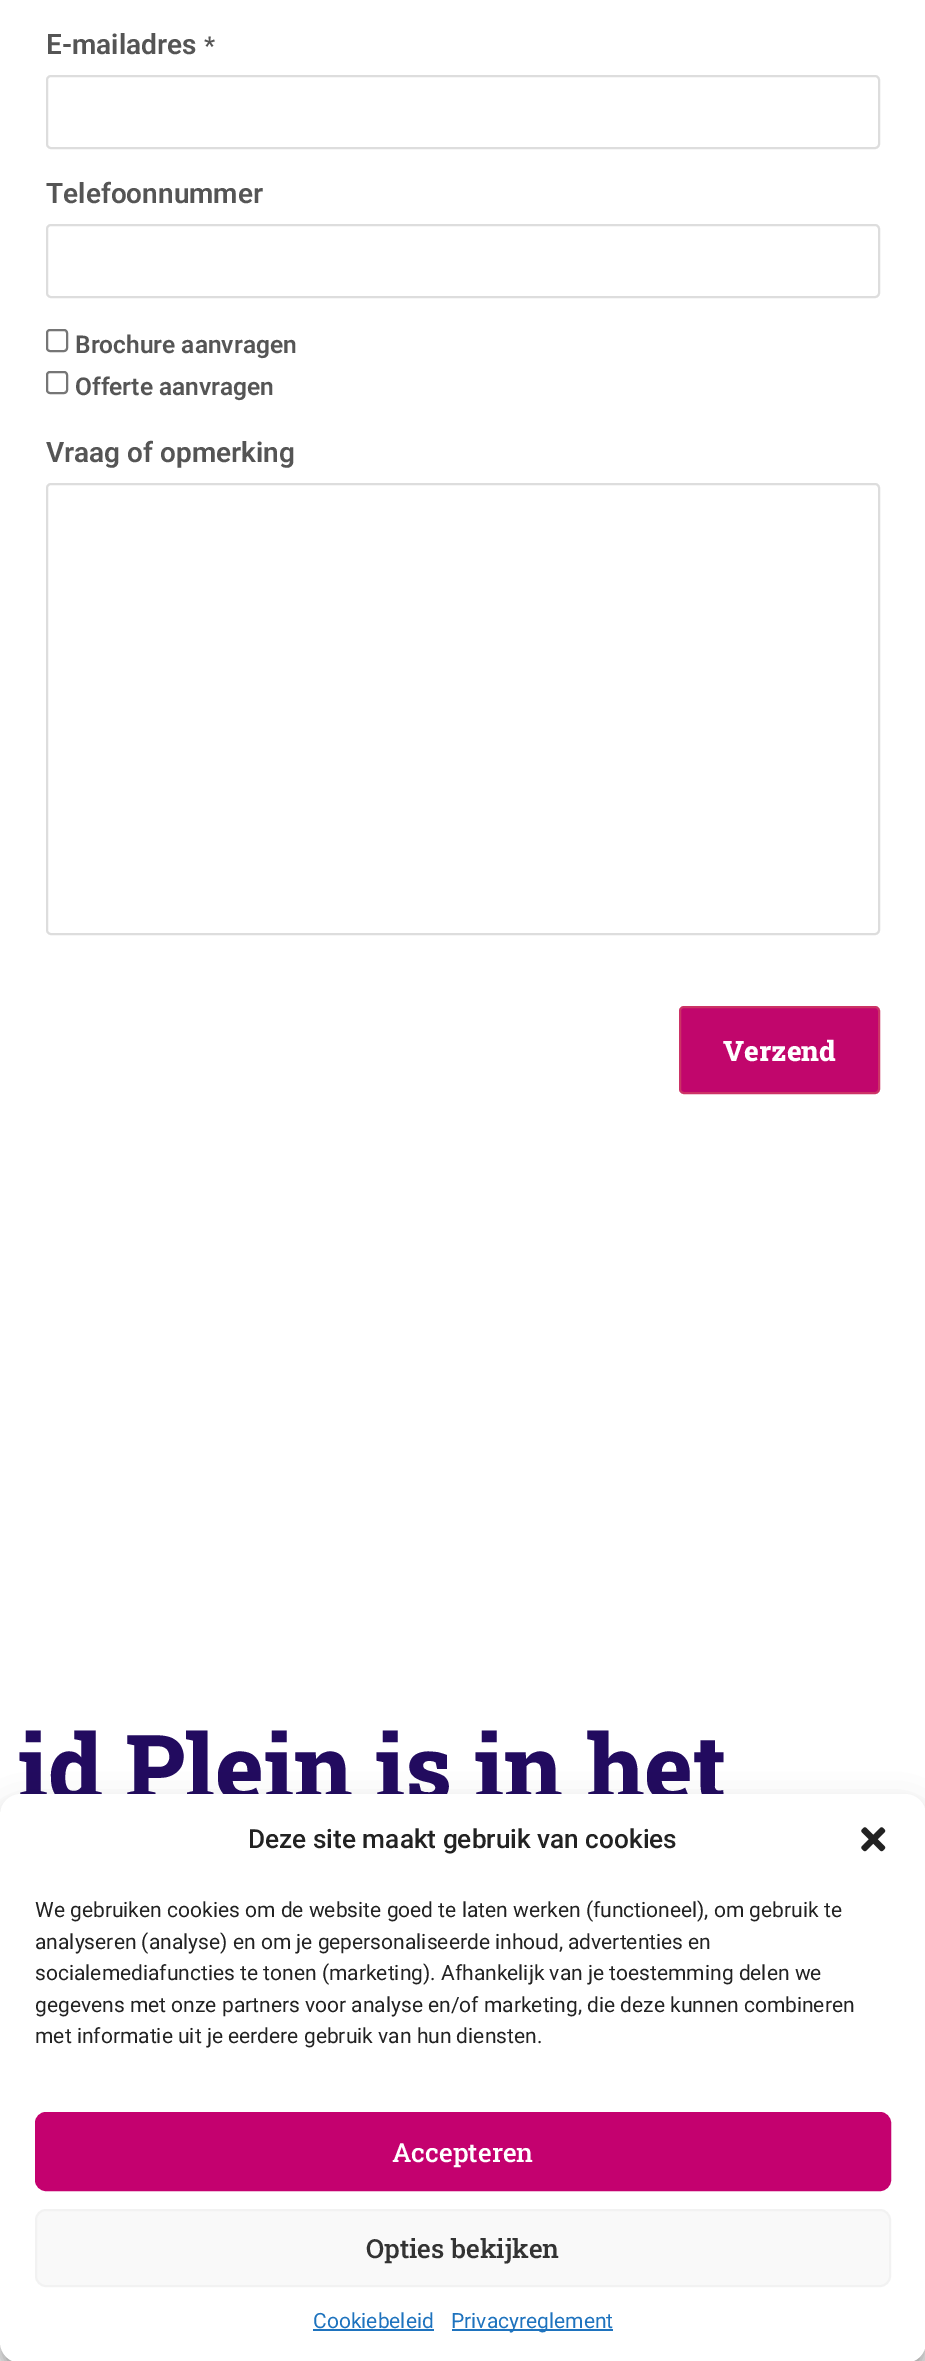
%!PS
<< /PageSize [925 2361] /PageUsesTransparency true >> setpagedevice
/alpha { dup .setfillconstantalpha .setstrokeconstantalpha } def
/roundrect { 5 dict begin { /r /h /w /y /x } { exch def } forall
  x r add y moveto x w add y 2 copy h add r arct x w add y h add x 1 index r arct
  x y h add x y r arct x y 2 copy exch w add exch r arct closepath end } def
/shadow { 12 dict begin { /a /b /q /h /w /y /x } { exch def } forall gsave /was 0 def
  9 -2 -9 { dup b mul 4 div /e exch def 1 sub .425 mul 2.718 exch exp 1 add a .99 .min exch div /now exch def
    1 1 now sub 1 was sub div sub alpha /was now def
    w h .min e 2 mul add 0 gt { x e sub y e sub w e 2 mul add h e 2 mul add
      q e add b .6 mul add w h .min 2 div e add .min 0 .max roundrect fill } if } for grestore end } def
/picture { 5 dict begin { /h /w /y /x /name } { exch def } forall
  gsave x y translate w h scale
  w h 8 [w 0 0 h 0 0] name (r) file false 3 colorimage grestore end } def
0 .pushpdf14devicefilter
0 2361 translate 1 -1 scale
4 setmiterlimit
1 setgray
0 0 925 2361 rectfill
/Roboto-SemiBold [28 0 0 -28 0 0] selectfont
0.333 setgray
46 54 moveto (E-mailadres) show
/Roboto-SemiBold [24.5 0 0 -24.5 0 0] selectfont
204 54 moveto (*) show
0.867 setgray
2 setlinewidth
47 76 832 72 4 roundrect stroke
/Roboto-SemiBold [28 0 0 -28 0 0] selectfont
0.333 setgray
46 203 moveto (Telefoonnummer) show
0.867 setgray
47 225 832 72 4 roundrect stroke
0.463 setgray
47 330 20 21 3 roundrect stroke
/Roboto-SemiBold [24.5 0 0 -24.5 0 0] selectfont
0.333 setgray
75 353 moveto (Brochure aanvragen) show
0.463 setgray
47 372 20 21 3 roundrect stroke
0.333 setgray
75 395 moveto (Offerte aanvragen) show
/Roboto-SemiBold [28 0 0 -28 0 0] selectfont
46 462 moveto (Vraag of opmerking) show
0.867 setgray
47 484 832 450 4 roundrect stroke
0.757 0.024 0.424 setrgbcolor
680 1007 199 86 4 roundrect gsave fill grestore
0.8 0.2 0.4 setrgbcolor
stroke
/RobotoSlab-ExtraBold [28 0 0 -28 0 0] selectfont
1 setgray
723 1061 moveto (Verzend) show
/RobotoSlab-ExtraBold [92.5 0 0 -92.5 0 0] selectfont
0.133 0.043 0.373 setrgbcolor
18 1801 moveto (id Plein is in het) show
0 setgray
0 1804 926 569 21 5 0.23 shadow
0 1811 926 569 21 17.5 0.19 shadow
1 setgray
0 1794 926 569 21 roundrect fill
/Roboto-Medium [26.25 0 0 -26.25 0 0] selectfont
0.133 setgray
248 1848 moveto (Deze site maakt gebruik van cookies) show
(img1.rgb) 861 1827 25 25 picture
/Roboto-Regular [21 0 0 -21 0 0] selectfont
35 1917 moveto (We gebruiken cookies om de website goed te laten werken \(functioneel\), om gebruik te) show
35 1949 moveto (analyseren \(analyse\) en om je gepersonaliseerde inhoud, advertenties en) show
35 1980 moveto (socialemediafuncties te tonen \(marketing\). Afhankelijk van je toestemming delen we) show
35 2012 moveto (gegevens met onze partners voor analyse en/of marketing, die deze kunnen combineren) show
35 2043 moveto (met informatie uit je eerdere gebruik van hun diensten.) show
0.769 0.004 0.435 setrgbcolor
36 2113 854 77 10 roundrect gsave fill grestore
stroke
/RobotoSlab-Medium [26.25 0 0 -26.25 0 0] selectfont
1 setgray
392 2162 moveto (Accepteren) show
0.976 setgray
36 2210 854 76 10 roundrect gsave fill grestore
0.949 setgray
stroke
0.2 setgray
366 2258 moveto (Opties bekijken) show
/Roboto-Regular [21 0 0 -21 0 0] selectfont
0.118 0.451 0.745 setrgbcolor
313 2328 moveto (Cookiebeleid) show
313 2329 121 2 rectfill
452 2329 161 2 rectfill
451 2328 moveto (Privacyreglement) show
.poppdf14devicefilter showpage
